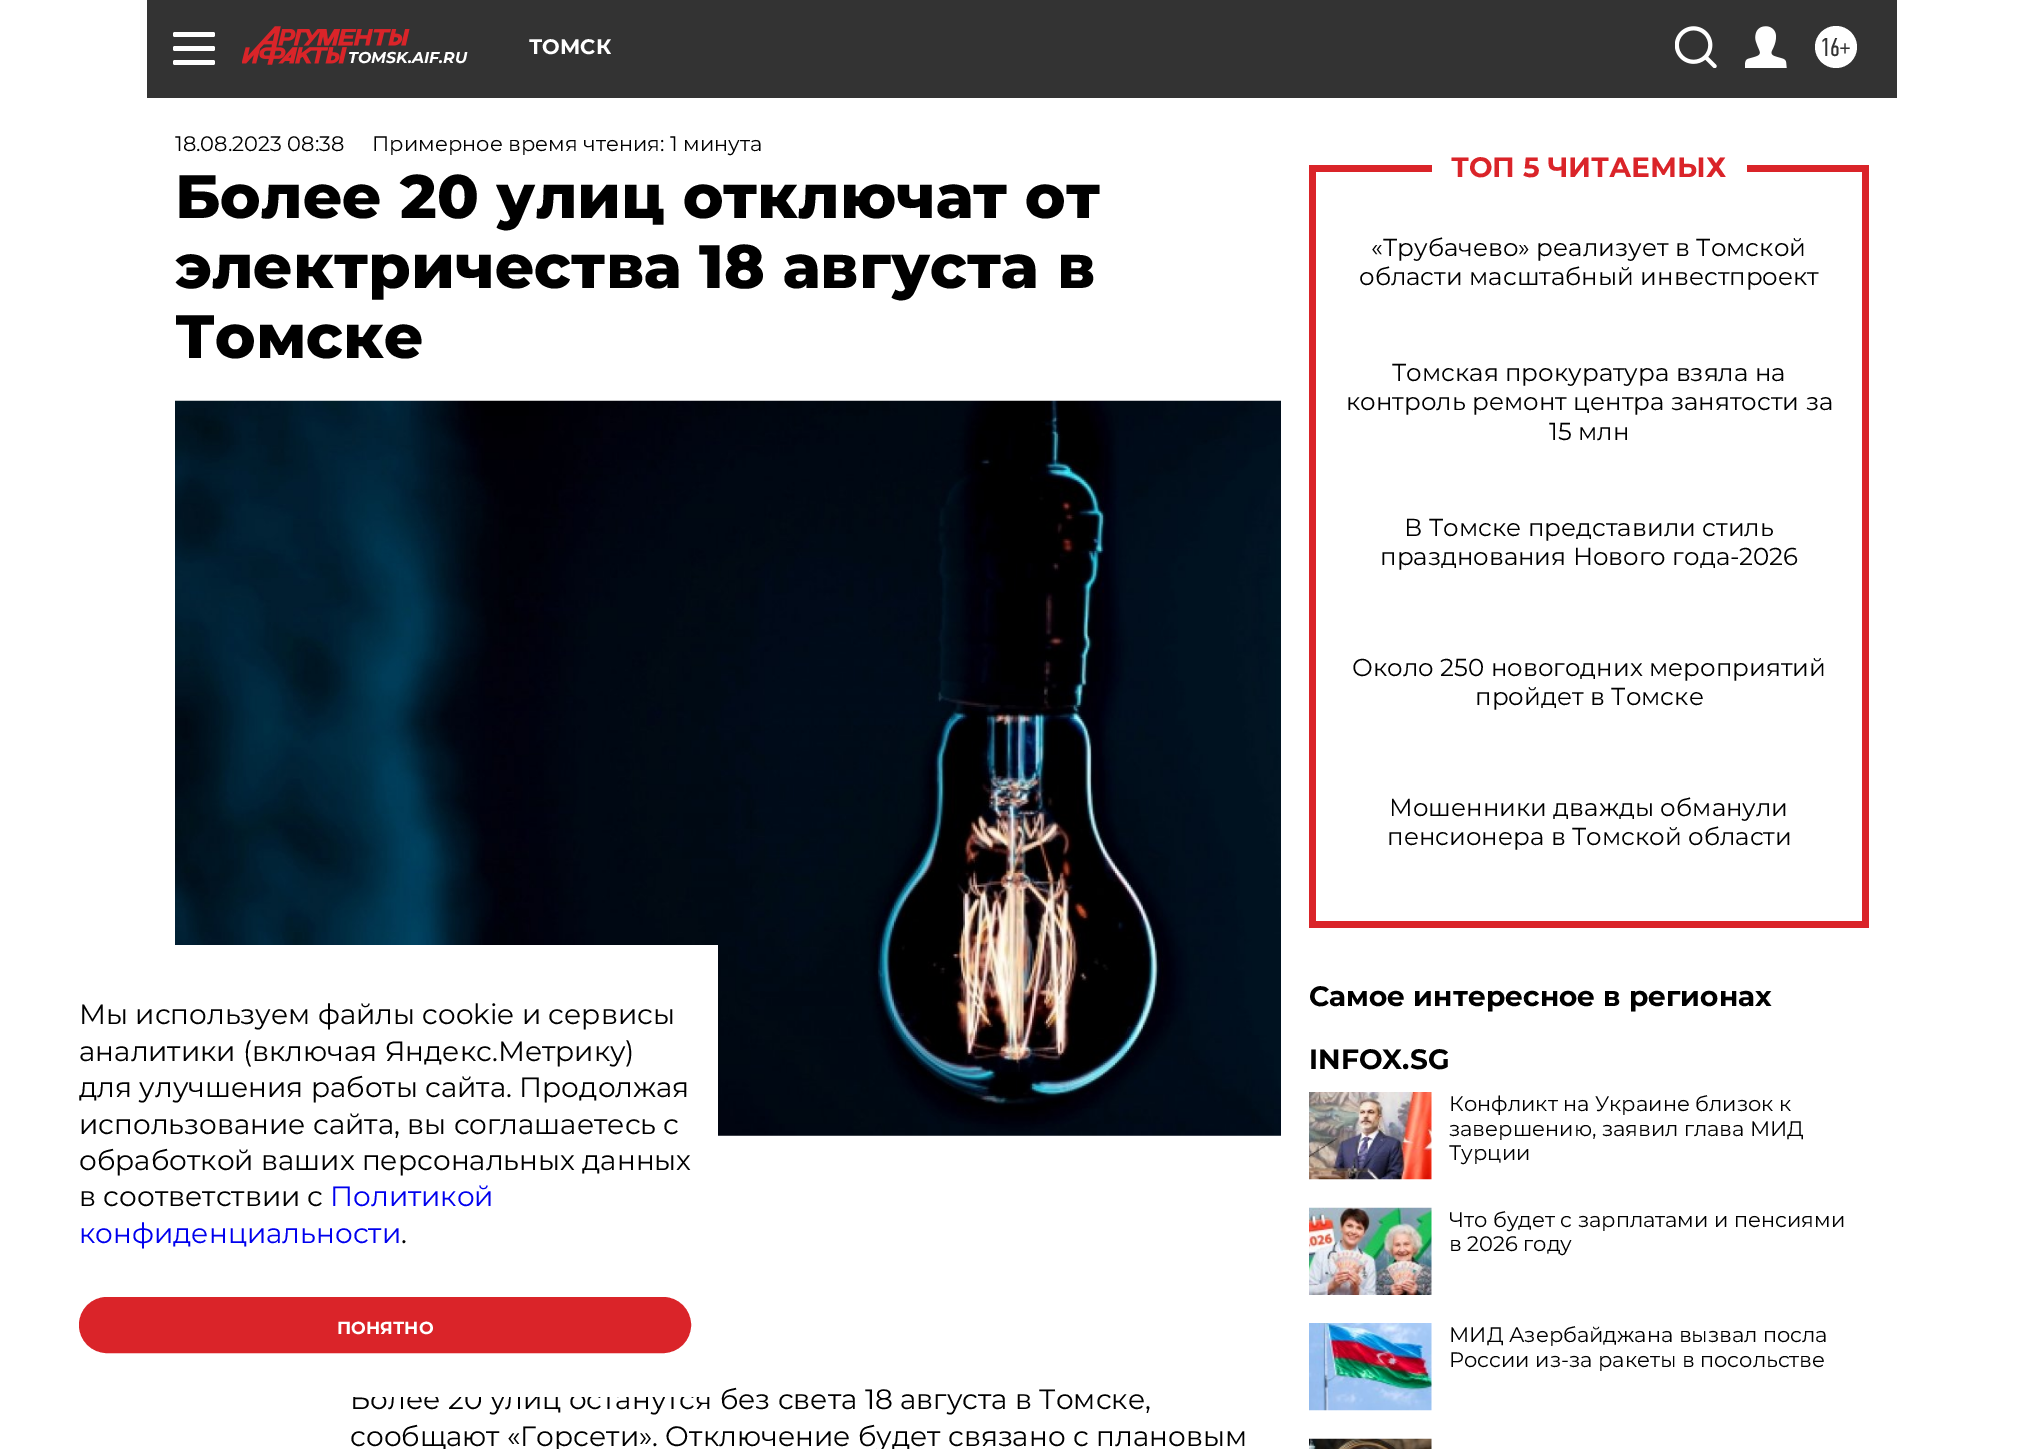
%!PS
<< /PageSize [2044 1449] >> setpagedevice
/roundrect { 5 dict begin { /r /h /w /y /x } { exch def } forall
  x r add y moveto x w add y 2 copy h add r arct x w add y h add x 1 index r arct
  x y h add x y r arct x y 2 copy exch w add exch r arct closepath end } def
/picture { 5 dict begin { /h /w /y /x /name } { exch def } forall
  gsave x y translate w h scale
  w h 8 [w 0 0 h 0 0] name (r) file false 3 colorimage grestore end } def
0 1449 translate 1 -1 scale
4 setmiterlimit
1 setgray
0 0 2044 1449 rectfill
0.2 setgray
147 0 1750 98 rectfill
1 setgray
173 32 42 5 2 roundrect fill
173 46 42 5 2 roundrect fill
173 60 42 5 2 roundrect fill
/Montserrat-Bold [21 0 0 -21 0 0] selectfont
529 54 moveto (ТОМСК) show
(img1.rgb) 1675 26 42 42 picture
(img2.rgb) 1745 26 42 42 picture
newpath 1836 47 21 0 360 arc closepath fill
/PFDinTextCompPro-Regular [26 0 0 -26 0 0] selectfont
0.2 setgray
1820 56 moveto (16+) show
(img3.rgb) 242 26 168 39 picture
/Montserrat-BoldItalic [15.75 0 0 -15.75 0 0] selectfont
1 setgray
348 63 moveto (TOMSK.AIF.RU) show
/Montserrat-Regular [21 0 0 -21 0 0] selectfont
0 setgray
175 151 moveto (18.08.2023 08:38) show
372 151 moveto (Примерное время чтения: 1 минута) show
/Montserrat-ExtraBold [61.25 0 0 -61.25 0 0] selectfont
175 218 moveto (Более 20 улиц отключат от) show
175 288 moveto (электричества 18 августа в) show
175 358 moveto (Томске) show
(img4.rgb) 175 400 1106 736 picture
/Montserrat-Regular [28 0 0 -28 0 0] selectfont
350 1409 moveto (Более 20 улиц останутся без света 18 августа в Томске,) show
350 1446 moveto (сообщают «Горсети». Отключение будет связано с плановым) show
0.855 0.141 0.161 setrgbcolor
1862 165 7 763 rectfill
1309 921 560 7 rectfill
1309 165 7 763 rectfill
1309 165 123 7 rectfill
/Montserrat-Bold [28 0 0 -28 0 0] selectfont
1451 177 moveto (ТОП 5 ЧИТАЕМЫХ) show
1747 165 122 7 rectfill
/Montserrat-Regular [24.5 0 0 -24.5 0 0] selectfont
0 setgray
1371 256 moveto («Трубачево» реализует в Томской) show
1359 285 moveto (области масштабный инвестпроект) show
1392 381 moveto (Томская прокуратура взяла на) show
1346 410 moveto (контроль ремонт центра занятости за) show
1549 440 moveto (15 млн) show
1404 536 moveto (В Томске представили стиль) show
1380 565 moveto (празднования Нового года-2026) show
1352 676 moveto (Около 250 новогодних мероприятий) show
1475 705 moveto (пройдет в Томске) show
1389 816 moveto (Мошенники дважды обманули) show
1387 845 moveto (пенсионера в Томской области) show
/Montserrat-Bold [28 0 0 -28 0 0] selectfont
1309 1006 moveto (Самое интересное в регионах) show
1309 1069 moveto (INFOX.SG) show
(img5.rgb) 1309 1092 123 88 picture
/Montserrat-Regular [21 0 0 -21 0 0] selectfont
1449 1111 moveto (Конфликт на Украине близок к) show
1449 1136 moveto (завершению, заявил глава МИД) show
1449 1160 moveto (Турции) show
(img6.rgb) 1309 1207 123 88 picture
1449 1227 moveto (Что будет с зарплатами и пенсиями) show
1449 1251 moveto (в 2026 году) show
(img7.rgb) 1309 1323 123 88 picture
1449 1342 moveto (МИД Азербайджана вызвал посла) show
1449 1367 moveto (России из-за ракеты в посольстве) show
(img8.rgb) 1309 1438 123 11 picture
1 setgray
175 945 543 452 rectfill
/Montserrat-Regular [28 0 0 -28 0 0] selectfont
0 setgray
79 1024 moveto (Мы используем файлы cookie и сервисы) show
79 1061 moveto (аналитики \(включая Яндекс.Метрику\)) show
79 1097 moveto (для улучшения работы сайта. Продолжая) show
79 1134 moveto (использование сайта, вы соглашаетесь с) show
79 1170 moveto (обработкой ваших персональных данных) show
79 1206 moveto (в соответствии с) show
0 0 0.933 setrgbcolor
330 1206 moveto (Политикой) show
79 1243 moveto (конфиденциальности) show
0 setgray
401 1243 moveto (.) show
0.855 0.141 0.161 setrgbcolor
81 1299 608 52 26 roundrect gsave fill grestore
4 setlinewidth
stroke
/Montserrat-Bold [17.5 0 0 -17.5 0 0] selectfont
1 setgray
337 1334 moveto (ПОНЯТНО) show
showpage
